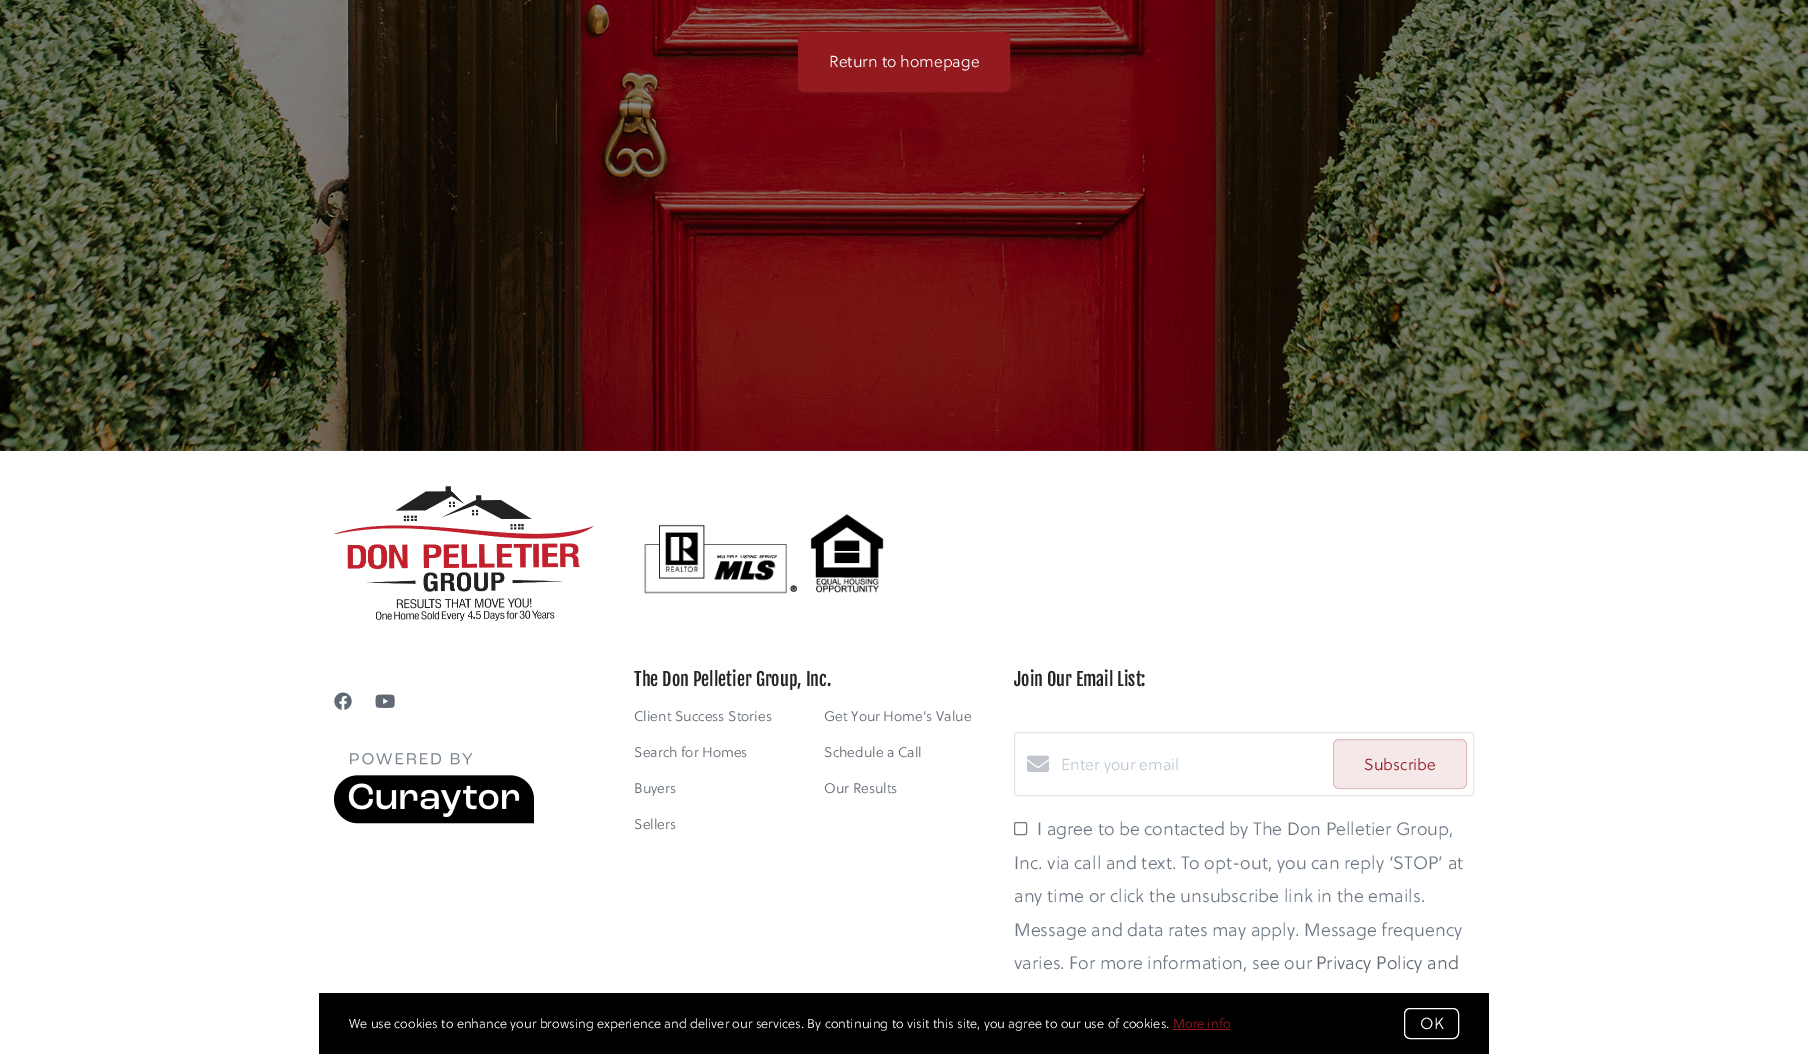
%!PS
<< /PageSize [1808 1054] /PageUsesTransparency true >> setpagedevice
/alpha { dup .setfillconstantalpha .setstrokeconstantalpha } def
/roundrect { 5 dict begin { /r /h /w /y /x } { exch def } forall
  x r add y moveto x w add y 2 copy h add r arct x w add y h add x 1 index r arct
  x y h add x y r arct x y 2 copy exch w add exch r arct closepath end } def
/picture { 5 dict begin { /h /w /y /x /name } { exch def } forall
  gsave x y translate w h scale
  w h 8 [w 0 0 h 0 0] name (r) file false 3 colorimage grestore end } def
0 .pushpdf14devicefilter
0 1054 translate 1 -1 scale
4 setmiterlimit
1 setgray
0 0 1808 1054 rectfill
(img1.rgb) 0 0 1808 451 picture
0.576 0.102 0.122 setrgbcolor
798.5 32.5 211 59 5.5 roundrect gsave fill grestore
stroke
/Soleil-Light [16 0 0 -16 0 0] selectfont
1 setgray
829 67 moveto (Return to homepage) show
(img2.rgb) 334 486 260 135 picture
(img3.rgb) 644 514 240 80 picture
(img4.rgb) 334 692 18 18 picture
(img5.rgb) 375 694 20 14 picture
(img6.rgb) 334 753 200 71 picture
/FjallaOne-Regular [18 0 0 -18 0 0] selectfont
0.145 setgray
634 686 moveto (The Don Pelletier Group, Inc.) show
/Soleil-Light [14 0 0 -14 0 0] selectfont
0.38 0.412 0.447 setrgbcolor
634 721 moveto (Client Success Stories) show
824 721 moveto (Get Your Home's Value) show
634 757 moveto (Search for Homes) show
824 757 moveto (Schedule a Call) show
634 793 moveto (Buyers) show
824 793 moveto (Our Results) show
634 829 moveto (Sellers) show
/FjallaOne-Regular [18 0 0 -18 0 0] selectfont
0.145 setgray
1014 686 moveto (Join Our Email List:) show
0.878 0.898 0.918 setrgbcolor
1014.5 732.5 459 63 3.5 roundrect stroke
(img7.rgb) 1027 755 22 17 picture
/Soleil-Light [16 0 0 -16 0 0] selectfont
0.737 0.784 0.839 setrgbcolor
1061 770 moveto (Enter your email) show
0.957 0.91 0.914 setrgbcolor
1333 739 134 50 6 roundrect fill
0.2 alpha
0.576 0.102 0.122 setrgbcolor
1333.5 739.5 133 49 5.5 roundrect stroke
1 alpha
1364 770 moveto (Subscribe) show
0.463 setgray
1014.5 822.5 12 12 1.5 roundrect stroke
/Soleil-Light [18 0 0 -18 0 0] selectfont
0.431 0.478 0.529 setrgbcolor
1037 835 moveto (I agree to be contacted by The Don Pelletier Group,) show
1014 869 moveto (Inc. via call and text. To opt-out, you can reply ‘STOP’ at) show
1014 902 moveto (any time or click the unsubscribe link in the emails.) show
1014 936 moveto (Message and data rates may apply. Message frequency) show
1014 969 moveto (varies. For more information, see our) show
0.38 0.412 0.447 setrgbcolor
1316 969 moveto (Privacy Policy and) show
0 setgray
319 993 1170 61 rectfill
/Soleil-Light [13 0 0 -13 0 0] selectfont
1 setgray
349 1028 moveto (We use cookies to enhance your browsing experience and deliver our services. By continuing to visit this site, you agree to our use of cookies.) show
0.576 0.102 0.122 setrgbcolor
1173 1028 moveto (More info) show
1173 1029 57 1 rectfill
1 setgray
1404.5 1008.5 54 30 5.5 roundrect stroke
/Soleil-Light [16 0 0 -16 0 0] selectfont
1420 1029 moveto (OK) show
.poppdf14devicefilter showpage
